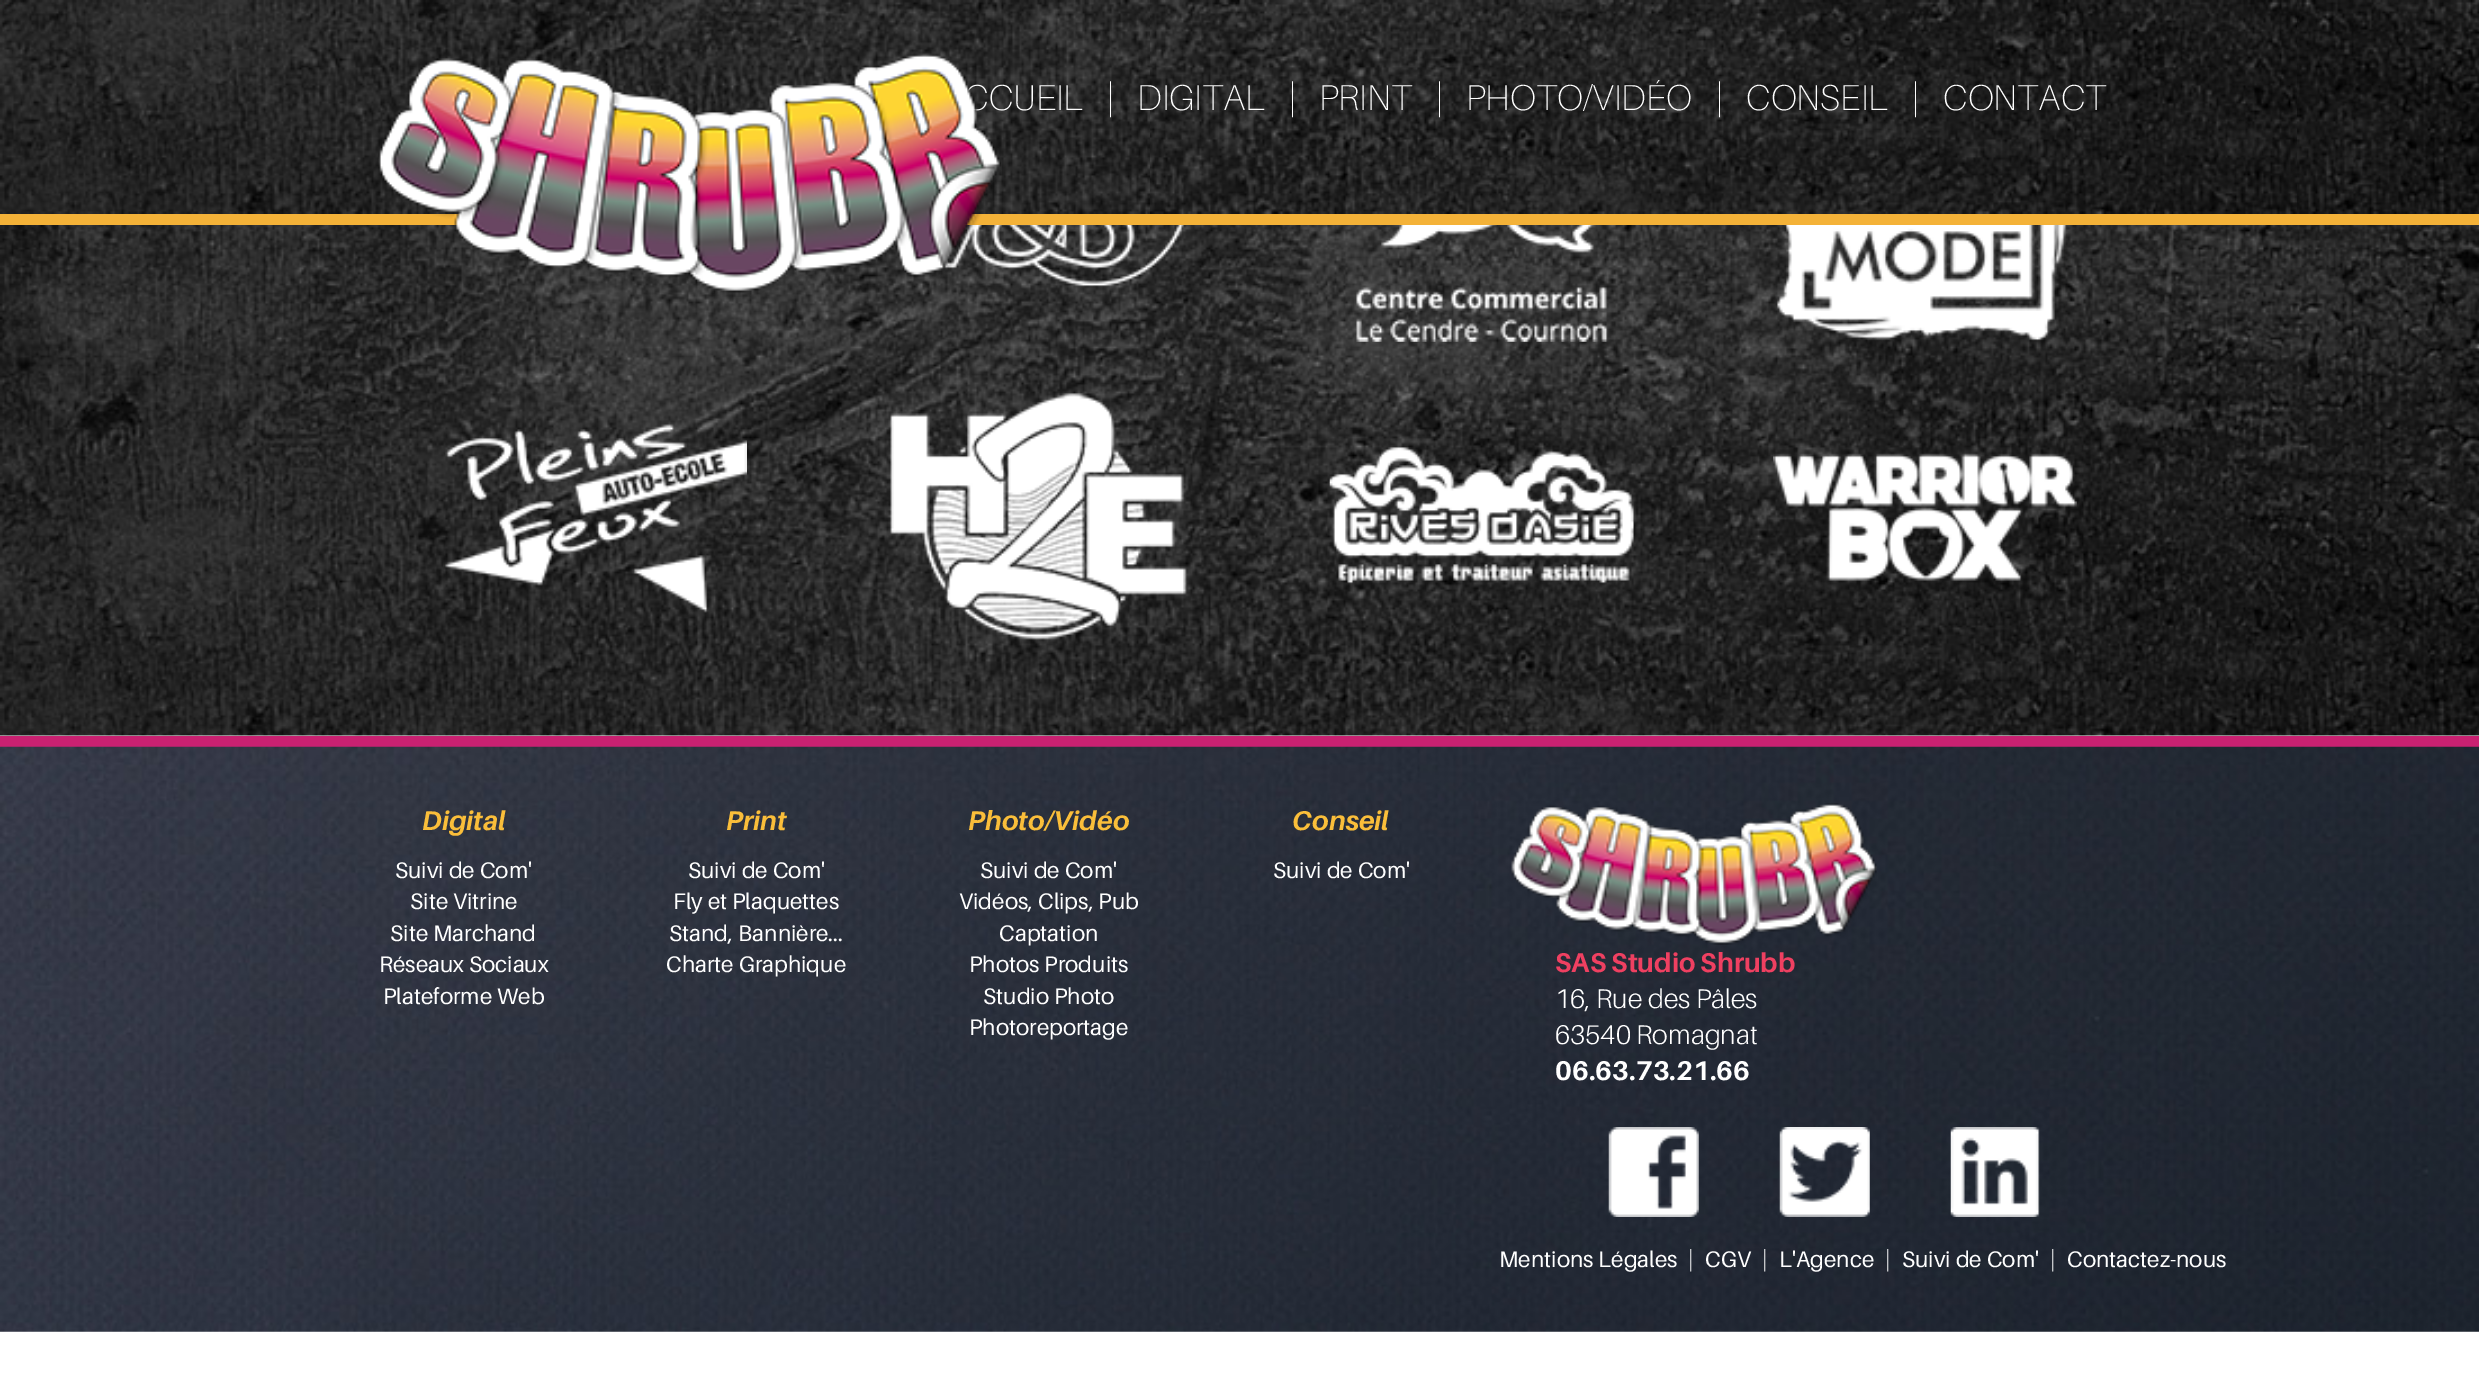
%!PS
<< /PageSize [2479 1398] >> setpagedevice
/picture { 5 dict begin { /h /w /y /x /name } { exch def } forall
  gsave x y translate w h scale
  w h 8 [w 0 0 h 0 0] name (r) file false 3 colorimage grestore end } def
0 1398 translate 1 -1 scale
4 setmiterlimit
1 setgray
0 0 2479 1398 rectfill
(img1.rgb) 0 0 2479 214 picture
/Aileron-Thin [36 0 0 -36 0 0] selectfont
964 110 moveto (CCUEIL) show
0.957 0.698 0.22 setrgbcolor
0 214 2479 11 rectfill
(img3.rgb) 0 225 2479 511 picture
(img4.rgb) 942 225 243 62 picture
(img2.rgb) 378 53 623 244 picture
1 setgray
1106 110 moveto (|) show
1137 110 moveto (DIGITAL) show
1288 110 moveto (|) show
1319 110 moveto (PRINT) show
1435 110 moveto (|) show
1466 110 moveto (PHOTO/VIDÉO) show
1715 110 moveto (|) show
1746 110 moveto (CONSEIL) show
1911 110 moveto (|) show
1943 110 moveto (CONTACT) show
0.788 0.129 0.443 setrgbcolor
0 736 2479 11 rectfill
(img5.rgb) 1356 225 252 117 picture
(img6.rgb) 1777 225 291 116 picture
(img7.rgb) 443 424 304 189 picture
(img8.rgb) 890 393 297 247 picture
(img9.rgb) 1329 447 305 137 picture
(img10.rgb) 1773 453 304 128 picture
(img11.rgb) 0 746 2479 586 picture
/Aileron-BoldItalic [27 0 0 -27 0 0] selectfont
0.98 0.745 0.227 setrgbcolor
422 830 moveto (Digital) show
/Aileron-Regular [22.5 0 0 -22.5 0 0] selectfont
1 setgray
395 878 moveto (Suivi de Com') show
410 909 moveto (Site Vitrine) show
390 941 moveto (Site Marchand) show
379 972 moveto (Réseaux Sociaux) show
383 1004 moveto (Plateforme Web) show
/Aileron-BoldItalic [27 0 0 -27 0 0] selectfont
0.98 0.745 0.227 setrgbcolor
726 830 moveto (Print) show
/Aileron-Regular [22.5 0 0 -22.5 0 0] selectfont
1 setgray
688 878 moveto (Suivi de Com') show
673 909 moveto (Fly et Plaquettes) show
669 941 moveto (Stand, Bannière...) show
666 972 moveto (Charte Graphique) show
/Aileron-BoldItalic [27 0 0 -27 0 0] selectfont
0.98 0.745 0.227 setrgbcolor
968 830 moveto (Photo/Vidéo) show
/Aileron-Regular [22.5 0 0 -22.5 0 0] selectfont
1 setgray
980 878 moveto (Suivi de Com') show
959 909 moveto (Vidéos, Clips, Pub) show
999 941 moveto (Captation) show
969 972 moveto (Photos Produits) show
983 1004 moveto (Studio Photo) show
969 1035 moveto (Photoreportage) show
/Aileron-BoldItalic [27 0 0 -27 0 0] selectfont
0.98 0.745 0.227 setrgbcolor
1292 830 moveto (Conseil) show
/Aileron-Regular [22.5 0 0 -22.5 0 0] selectfont
1 setgray
1273 878 moveto (Suivi de Com') show
(img12.rgb) 1511 803 366 142 picture
/Aileron-Bold [27 0 0 -27 0 0] selectfont
0.937 0.251 0.38 setrgbcolor
1555 972 moveto (SAS Studio Shrubb) show
/Aileron-Light [27 0 0 -27 0 0] selectfont
1 setgray
1555 1008 moveto (16, Rue des Pâles) show
1555 1044 moveto (63540 Romagnat) show
/Aileron-Bold [27 0 0 -27 0 0] selectfont
1555 1080 moveto (06.63.73.21.66) show
(img13.rgb) 1608 1127 91 90 picture
(img14.rgb) 1779 1127 91 90 picture
(img15.rgb) 1950 1127 90 90 picture
/Aileron-Regular [22.5 0 0 -22.5 0 0] selectfont
1499 1267 moveto (Mentions Légales) show
/Aileron-Light [22.5 0 0 -22.5 0 0] selectfont
1688 1267 moveto (|) show
/Aileron-Regular [22.5 0 0 -22.5 0 0] selectfont
1705 1267 moveto (CGV) show
/Aileron-Light [22.5 0 0 -22.5 0 0] selectfont
1762 1267 moveto (|) show
/Aileron-Regular [22.5 0 0 -22.5 0 0] selectfont
1779 1267 moveto (L'Agence) show
/Aileron-Light [22.5 0 0 -22.5 0 0] selectfont
1885 1267 moveto (|) show
/Aileron-Regular [22.5 0 0 -22.5 0 0] selectfont
1902 1267 moveto (Suivi de Com') show
/Aileron-Light [22.5 0 0 -22.5 0 0] selectfont
2050 1267 moveto (|) show
/Aileron-Regular [22.5 0 0 -22.5 0 0] selectfont
2067 1267 moveto (Contactez-nous) show
showpage
